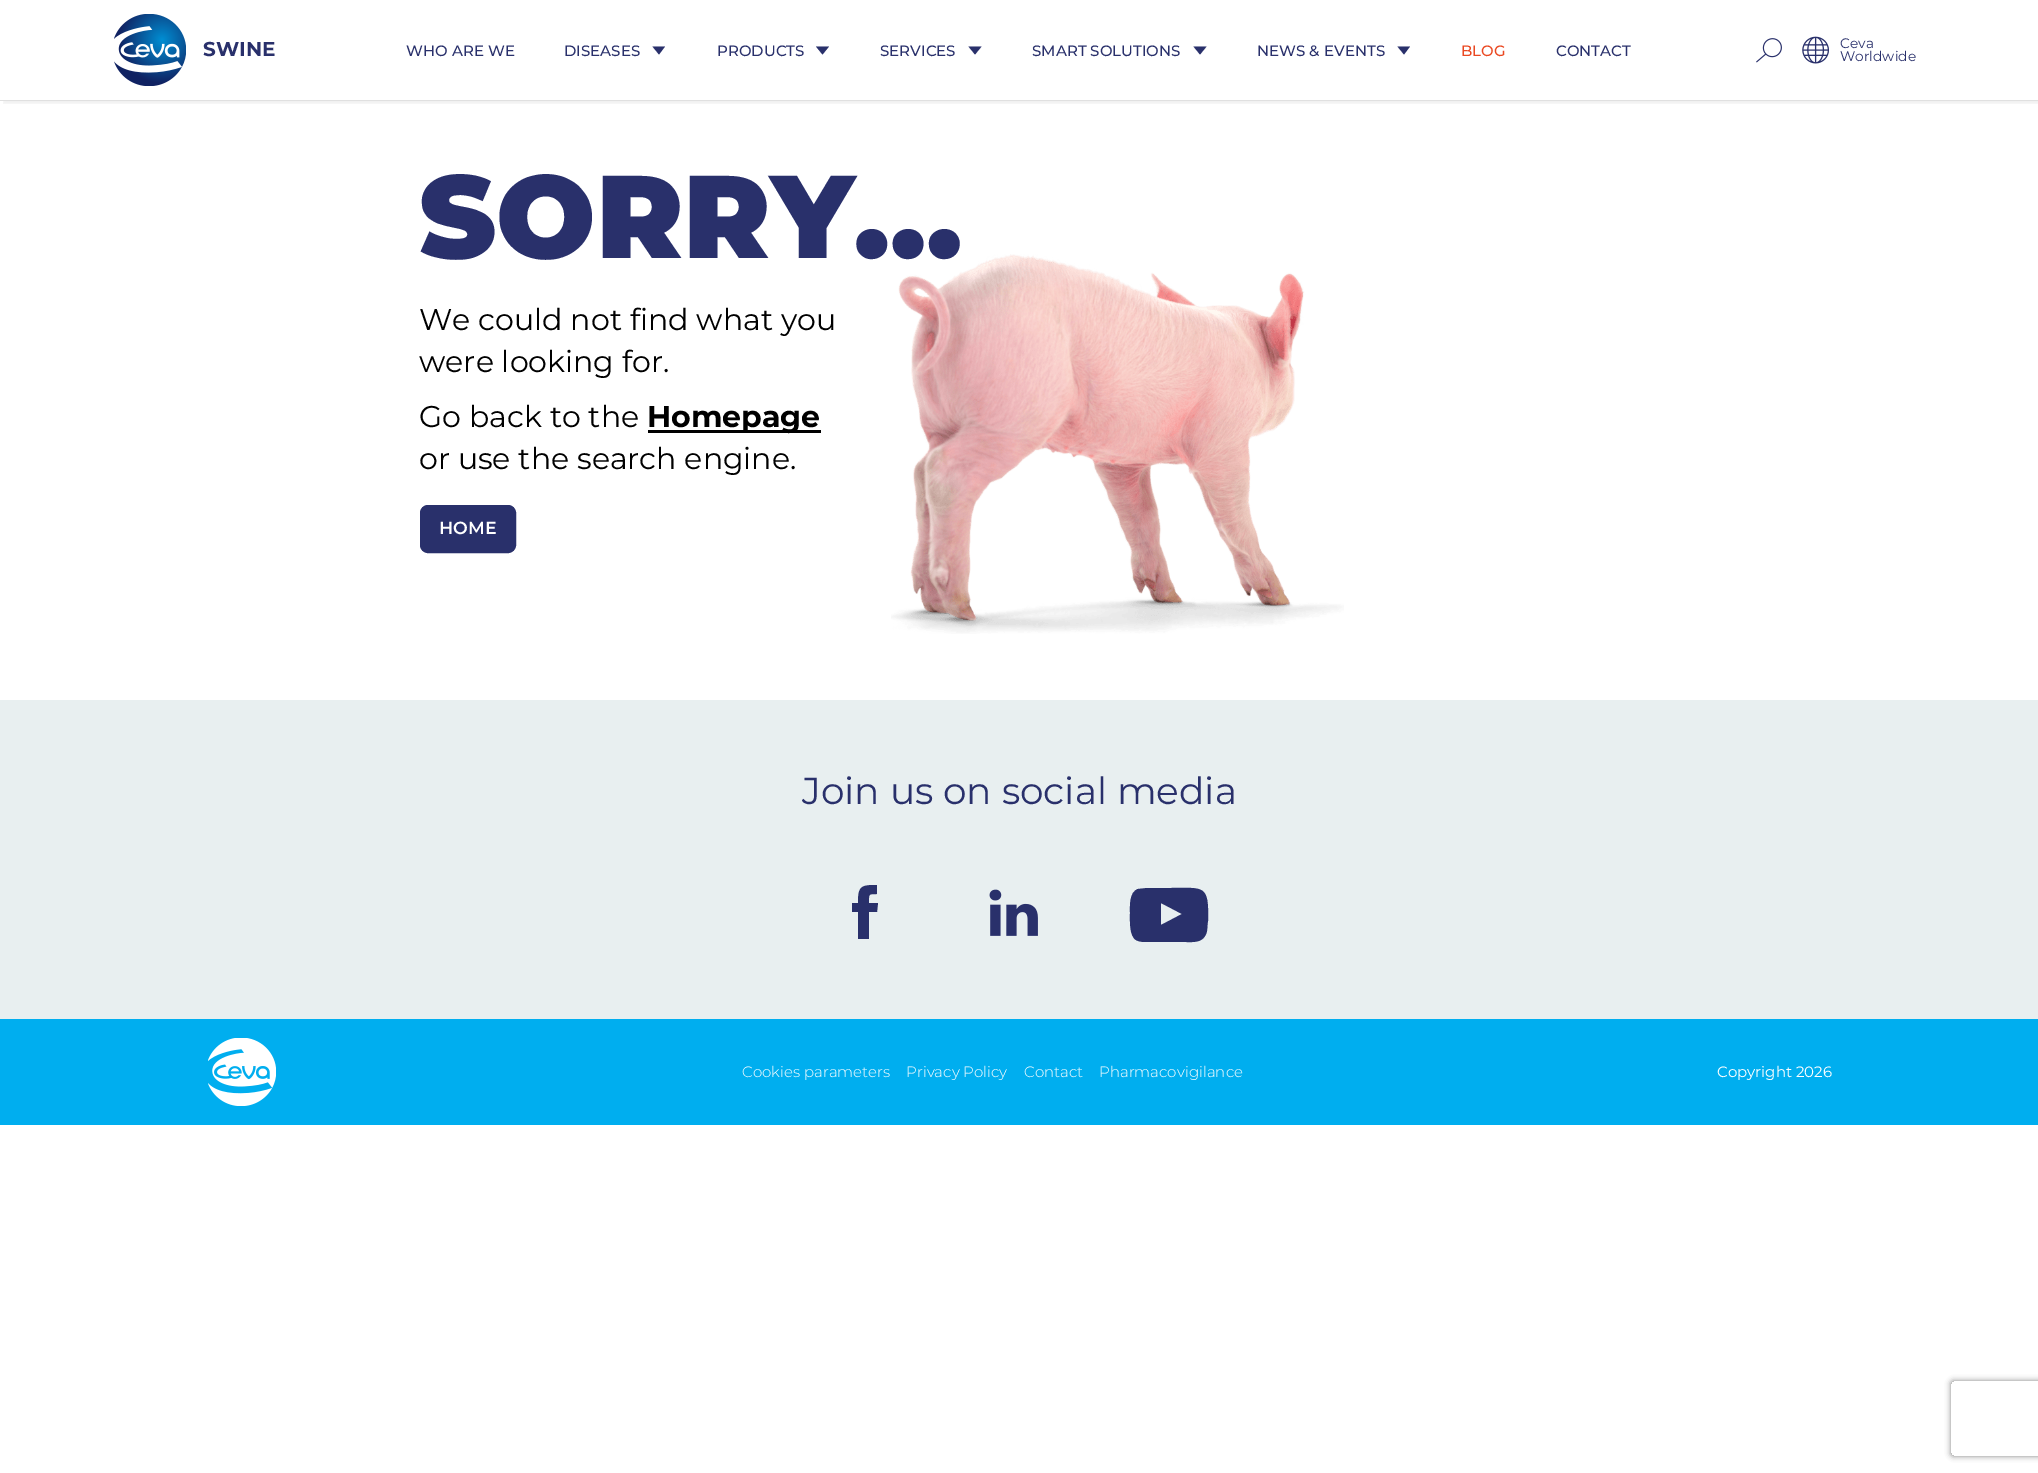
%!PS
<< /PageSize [2038 1473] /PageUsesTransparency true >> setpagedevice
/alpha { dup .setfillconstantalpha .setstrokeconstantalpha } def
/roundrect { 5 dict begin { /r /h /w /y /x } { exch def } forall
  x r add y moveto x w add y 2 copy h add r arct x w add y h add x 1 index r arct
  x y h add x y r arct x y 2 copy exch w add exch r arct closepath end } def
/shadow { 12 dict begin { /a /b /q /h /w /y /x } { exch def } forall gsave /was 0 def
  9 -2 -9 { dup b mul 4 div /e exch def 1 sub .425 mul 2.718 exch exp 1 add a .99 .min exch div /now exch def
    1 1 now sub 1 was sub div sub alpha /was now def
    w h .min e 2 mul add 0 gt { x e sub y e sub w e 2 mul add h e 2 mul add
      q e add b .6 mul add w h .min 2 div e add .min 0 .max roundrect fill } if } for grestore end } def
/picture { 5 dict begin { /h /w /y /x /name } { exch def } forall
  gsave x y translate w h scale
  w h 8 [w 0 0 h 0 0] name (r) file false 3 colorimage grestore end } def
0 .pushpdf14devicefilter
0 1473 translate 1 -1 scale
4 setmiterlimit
1 setgray
0 0 2038 1473 rectfill
gsave
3 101 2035 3 rectclip
0 setgray
3 3 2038 101 0 1.5 0.05 shadow
grestore
0.878 setgray
0 100 2038 1 rectfill
(img1.rgb) 114 14 72 72 picture
/Montserrat-Bold [20 0 0 -20 0 0] selectfont
0.161 0.188 0.42 setrgbcolor
203 56 moveto (SWINE) show
/Montserrat-Medium [15 0 0 -15 0 0] selectfont
406 56 moveto (WHO ARE WE) show
564 56 moveto (DISEASES) show
newpath 659 54.5 moveto 652.5 46.5 lineto 665 46.5 lineto closepath fill
717 56 moveto (PRODUCTS) show
newpath 822.5 54.5 moveto 816 46.5 lineto 829 46.5 lineto closepath fill
880 56 moveto (SERVICES) show
newpath 975 54.5 moveto 968.5 46.5 lineto 981.5 46.5 lineto closepath fill
1032 56 moveto (SMART SOLUTIONS) show
newpath 1200 54.5 moveto 1193.5 46.5 lineto 1206.5 46.5 lineto closepath fill
1257 56 moveto (NEWS & EVENTS) show
newpath 1404 54.5 moveto 1397.5 46.5 lineto 1410 46.5 lineto closepath fill
0.918 0.282 0.129 setrgbcolor
1461 56 moveto (BLOG) show
0.161 0.188 0.42 setrgbcolor
1556 56 moveto (CONTACT) show
(img2.rgb) 1756 38 26 25 picture
(img3.rgb) 1802 36 27 28 picture
/Montserrat-Regular [13.75 0 0 -13.75 0 0] selectfont
1840 48 moveto (Ceva) show
1840 61 moveto (Worldwide) show
(img4.rgb) 891 254 453 380 picture
/Montserrat-Black [117.5 0 0 -117.5 0 0] selectfont
419 258 moveto (SORRY…) show
/Montserrat-Regular [30 0 0 -30 0 0] selectfont
0 setgray
419 330 moveto (We could not find what you) show
419 372 moveto (were looking for.) show
419 427 moveto (Go back to the) show
648 430 173 3 rectfill
/Montserrat-Bold [30 0 0 -30 0 0] selectfont
647 427 moveto (Homepage) show
/Montserrat-Regular [30 0 0 -30 0 0] selectfont
419 469 moveto (or use the search engine.) show
0.161 0.188 0.42 setrgbcolor
420.5 505.5 95 47 7.5 roundrect gsave fill grestore
stroke
/Montserrat-SemiBold [17.5 0 0 -17.5 0 0] selectfont
1 setgray
439 534 moveto (HOME) show
0.91 0.937 0.941 setrgbcolor
0 700 2038 319 rectfill
/Montserrat-Regular [37.5 0 0 -37.5 0 0] selectfont
0.161 0.188 0.42 setrgbcolor
802 804 moveto (Join us on social media) show
newpath 877 912 moveto 869 912 lineto 869 939 lineto 858 939 lineto 858 912 lineto 852 912 lineto 852 903 lineto 858 903 lineto 858 886 861 885 877 885 curveto 877 894 lineto 868 894 869 894 869 903 curveto 878 903 lineto closepath fill
(img5.rgb) 989 889 49 47 picture
newpath 1169 942 moveto 1147 942 lineto 1144 942 1139 942 1136 940 curveto 1129 936 1130 920 1130 913 curveto 1130 906 1129 892 1138 889 curveto 1147 888 lineto 1170 888 lineto 1204 888 1209 884 1208 921 curveto 1207 925 1208 932 1205 936 curveto 1201 943 1192 942 1186 942 curveto closepath 1161 925 moveto 1182 914 lineto 1161 903 lineto closepath fill
0 0.682 0.937 setrgbcolor
0 1019 2038 106 rectfill
(img6.rgb) 208 1038 68 68 picture
/Montserrat-Light [15 0 0 -15 0 0] selectfont
1 setgray
742 1077 moveto (Cookies parameters) show
906 1077 moveto (Privacy Policy) show
1024 1077 moveto (Contact) show
1099 1077 moveto (Pharmacovigilance) show
/Montserrat-Regular [15 0 0 -15 0 0] selectfont
1717 1077 moveto (Copyright 2026) show
gsave
newpath 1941 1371 moveto 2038 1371 lineto 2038 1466 lineto 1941 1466 lineto closepath 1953.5 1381 moveto 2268.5 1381 lineto 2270 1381 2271 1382 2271 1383.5 curveto 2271 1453.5 lineto 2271 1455 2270 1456 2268.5 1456 curveto 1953.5 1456 lineto 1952 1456 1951 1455 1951 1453.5 curveto 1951 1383.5 lineto 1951 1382 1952 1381 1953.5 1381 curveto closepath eoclip newpath
0.502 setgray
1951 1381 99 75 2.5 3 1 shadow
grestore
.poppdf14devicefilter showpage
